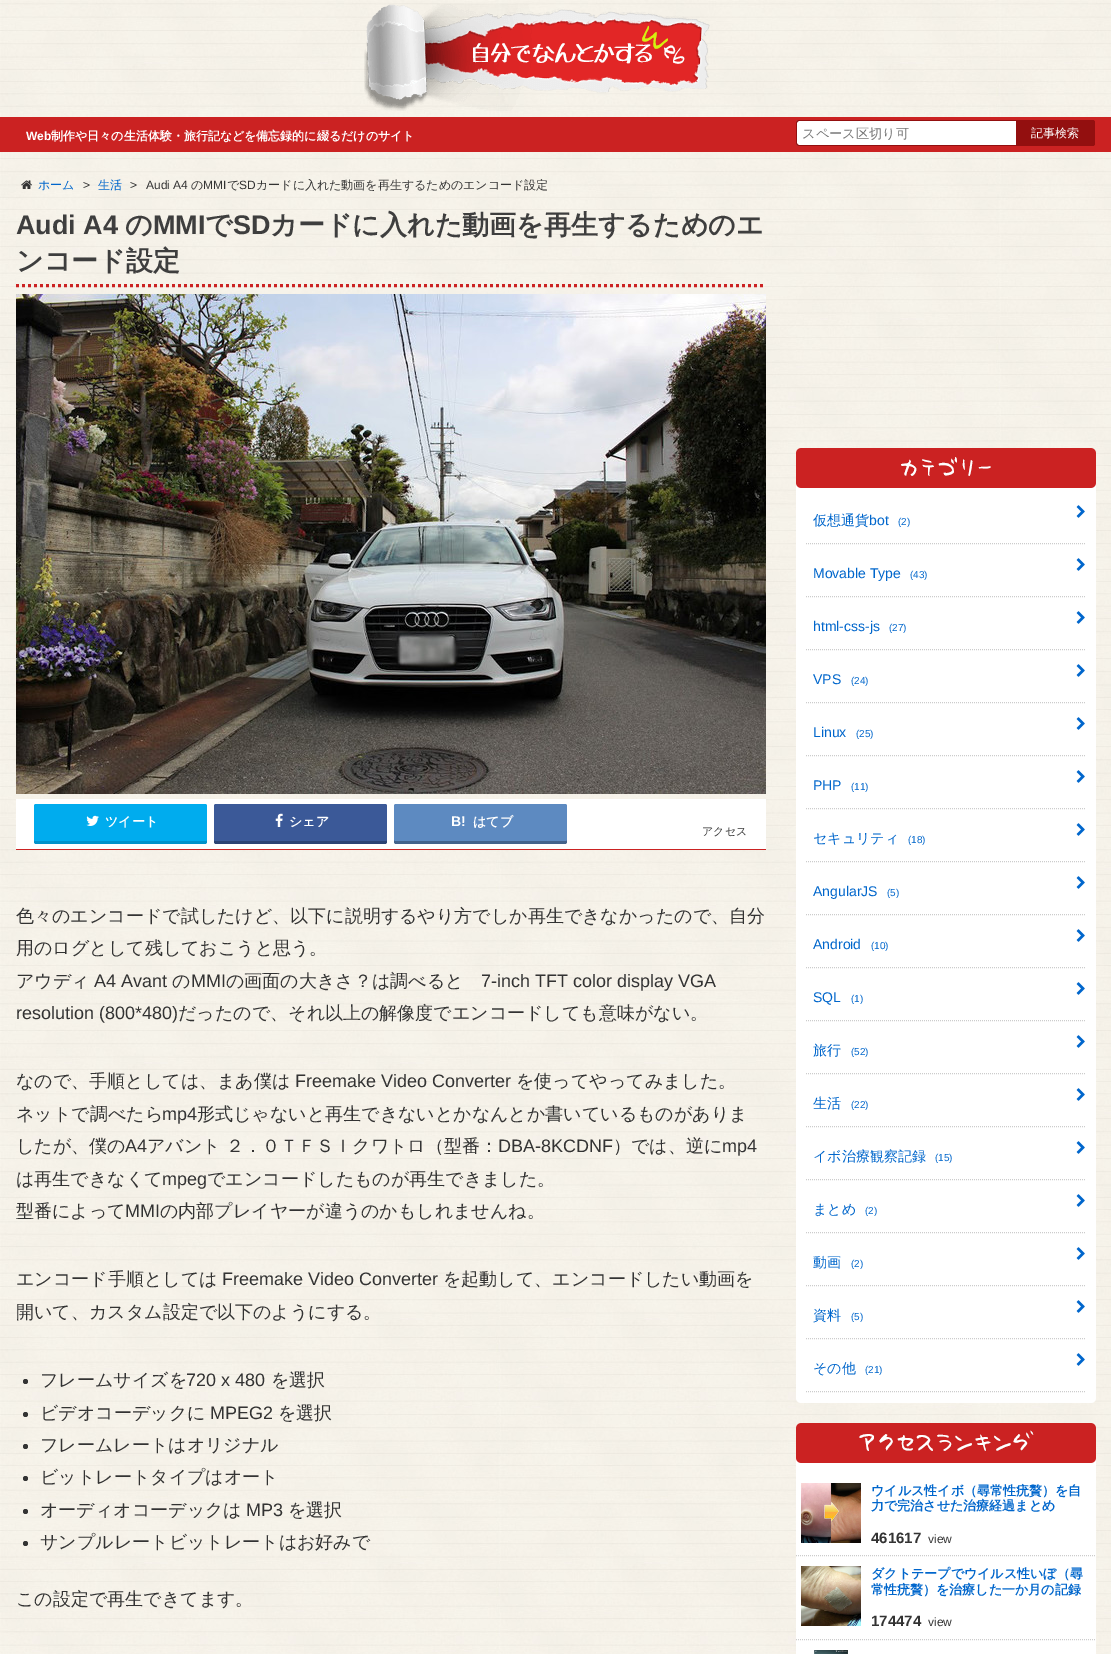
%!PS
<< /PageSize [1111 1654] >> setpagedevice
/roundrect { 5 dict begin { /r /h /w /y /x } { exch def } forall
  x r add y moveto x w add y 2 copy h add r arct x w add y h add x 1 index r arct
  x y h add x y r arct x y 2 copy exch w add exch r arct closepath end } def
/picture { 5 dict begin { /h /w /y /x /name } { exch def } forall
  gsave x y translate w h scale
  w h 8 [w 0 0 h 0 0] name (r) file false 3 colorimage grestore end } def
0 1654 translate 1 -1 scale
4 setmiterlimit
1 setgray
0 0 1111 1654 rectfill
(img1.rgb) 0 0 1111 1654 picture
0.796 0.133 0.133 setrgbcolor
0 117 1111 35 rectfill
(img2.rgb) 364 4 346 107 picture
/LiberationSans-Bold [12 0 0 -12 0 0] selectfont
1 setgray
26 140 moveto (Web) show
/WenQuanYiZenHei-Bold [12 0 0 -12 0 0] selectfont
51 140 moveto (制作や日々の生活体験・旅行記などを備忘録的に綴るだけのサイト) show
newpath 799 120 moveto 1016 120 lineto 1016 146 lineto 799 146 lineto 797.5 146 796 144.5 796 143 curveto 796 123 lineto 796 121.5 797.5 120 799 120 curveto closepath fill
0.576 0.059 0.059 setrgbcolor
newpath 799 120 moveto 1016 120 lineto 1016 146 lineto 799 146 lineto 797 146 796 145 796 143 curveto 796 123 lineto 796 121 797 120 799 120 curveto closepath 799 121 moveto 1016 121 lineto 1016 145 lineto 799 145 lineto 798 145 797 144 797 143 curveto 797 123 lineto 797 122 798 121 799 121 curveto closepath eofill
/WenQuanYiZenHei-Medium [13.25 0 0 -13.25 0 0] selectfont
0.459 setgray
802 138 moveto (スペース区切り可) show
0.576 0.059 0.059 setrgbcolor
newpath 1016 120 moveto 1092 120 lineto 1093.5 120 1095 121.5 1095 123 curveto 1095 143 lineto 1095 144.5 1093.5 146 1092 146 curveto 1016 146 lineto closepath fill
newpath 1016 120 moveto 1092 120 lineto 1094 120 1095 121 1095 123 curveto 1095 143 lineto 1095 145 1094 146 1092 146 curveto 1016 146 lineto closepath 1016 121 moveto 1092 121 lineto 1093 121 1094 122 1094 123 curveto 1094 143 lineto 1094 144 1093 145 1092 145 curveto 1016 145 lineto closepath eofill
/WenQuanYiZenHei-Medium [12 0 0 -12 0 0] selectfont
1 setgray
1031 137 moveto (記事検索) show
(img3.rgb) 21 180 11 9 picture
0 0.4 0.8 setrgbcolor
38 189 moveto (ホーム) show
/LiberationSans-Regular [12 0 0 -12 0 0] selectfont
0.2 setgray
83 189 moveto (>) show
/WenQuanYiZenHei-Medium [12 0 0 -12 0 0] selectfont
0 0.4 0.8 setrgbcolor
98 189 moveto (生活) show
/LiberationSans-Regular [12 0 0 -12 0 0] selectfont
0.2 setgray
130 189 moveto (>) show
146 189 moveto (Audi A4) show
/WenQuanYiZenHei-Medium [12 0 0 -12 0 0] selectfont
191 189 moveto (の) show
/LiberationSans-Regular [12 0 0 -12 0 0] selectfont
203 189 moveto (MMI) show
/WenQuanYiZenHei-Medium [12 0 0 -12 0 0] selectfont
227 189 moveto (で) show
/LiberationSans-Regular [12 0 0 -12 0 0] selectfont
239 189 moveto (SD) show
/WenQuanYiZenHei-Medium [12 0 0 -12 0 0] selectfont
256 189 moveto (カードに入れた動画を再生するためのエンコード設定) show
0.796 0.133 0.133 setrgbcolor
3 setlinewidth
[3 3] 0 setdash
newpath 16 285.5 moveto 766 285.5 lineto stroke
/LiberationSans-Bold [27 0 0 -27 0 0] selectfont
0.243 setgray
16 234 moveto (Audi A4) show
/WenQuanYiZenHei-Bold [27 0 0 -27 0 0] selectfont
125 234 moveto (の) show
/LiberationSans-Bold [27 0 0 -27 0 0] selectfont
153 234 moveto (MMI) show
/WenQuanYiZenHei-Bold [27 0 0 -27 0 0] selectfont
205 234 moveto (で) show
/LiberationSans-Bold [27 0 0 -27 0 0] selectfont
233 234 moveto (SD) show
/WenQuanYiZenHei-Bold [27 0 0 -27 0 0] selectfont
270 234 moveto (カードに入れた動画を再生するためのエ) show
16 270 moveto (ンコード設定) show
(img4.rgb) 16 294 750 500 picture
1 setgray
16 799 750 50 rectfill
0.796 0.133 0.133 setrgbcolor
16 849 750 1 rectfill
0 0.573 0.792 setrgbcolor
newpath 34 839 moveto 34 842 lineto 34 843 35 844 36 844 curveto 205 844 lineto 206 844 207 843 207 842 curveto 207 839 lineto 207 840 206 841 205 841 curveto 36 841 lineto 35 841 34 840 34 839 curveto closepath fill
0 0.675 0.933 setrgbcolor
34 804 173 37 2 roundrect fill
(img5.rgb) 86 815 13 11 picture
/WenQuanYiZenHei-Bold [13 0 0 -13 0 0] selectfont
1 setgray
105 826 moveto (ツイート) show
0.173 0.263 0.451 setrgbcolor
newpath 214 839 moveto 214 842 lineto 214 843 215 844 216 844 curveto 385 844 lineto 386 844 387 843 387 842 curveto 387 839 lineto 387 840 386 841 385 841 curveto 216 841 lineto 215 841 214 840 214 839 curveto closepath fill
0.231 0.349 0.596 setrgbcolor
214 804 173 37 2 roundrect fill
(img6.rgb) 275 813 8 14 picture
1 setgray
289 826 moveto (シェア) show
0.263 0.388 0.545 setrgbcolor
newpath 394 839 moveto 394 842 lineto 394 843 395 844 396 844 curveto 565 844 lineto 566 844 567 843 567 842 curveto 567 839 lineto 567 840 566 841 565 841 curveto 396 841 lineto 395 841 394 840 394 839 curveto closepath fill
0.365 0.541 0.757 setrgbcolor
394 804 173 37 2 roundrect fill
/LiberationSans-Bold [14 0 0 -14 0 0] selectfont
1 setgray
451 826 moveto (B!) show
/WenQuanYiZenHei-Bold [13 0 0 -13 0 0] selectfont
473 826 moveto (はてブ) show
/WenQuanYiZenHei-Medium [11 0 0 -11 0 0] selectfont
0.2 setgray
702 835 moveto (アクセス) show
/WenQuanYiZenHei-Medium [18 0 0 -18 0 0] selectfont
16 922 moveto (色々のエンコードで試したけど、以下に説明するやり方でしか再生できなかったので、自分) show
16 954 moveto (用のログとして残しておこうと思う。) show
16 987 moveto (アウディ) show
/LiberationSans-Regular [18 0 0 -18 0 0] selectfont
94 987 moveto (A4 Avant) show
/WenQuanYiZenHei-Medium [18 0 0 -18 0 0] selectfont
172 987 moveto (の) show
/LiberationSans-Regular [18 0 0 -18 0 0] selectfont
191 987 moveto (MMI) show
/WenQuanYiZenHei-Medium [18 0 0 -18 0 0] selectfont
226 987 moveto (の画面の大きさ？は調べると) show
/LiberationSans-Regular [18 0 0 -18 0 0] selectfont
481 987 moveto (7-inch TFT color display VGA) show
16 1019 moveto (resolution \(800*480\)) show
/WenQuanYiZenHei-Medium [18 0 0 -18 0 0] selectfont
178 1019 moveto (だったので、それ以上の解像度でエンコードしても意味がない。) show
16 1087 moveto (なので、手順としては、まあ僕は) show
/LiberationSans-Regular [18 0 0 -18 0 0] selectfont
295 1087 moveto (Freemake Video Converter) show
/WenQuanYiZenHei-Medium [18 0 0 -18 0 0] selectfont
516 1087 moveto (を使ってやってみました。) show
16 1120 moveto (ネットで調べたら) show
/LiberationSans-Regular [18 0 0 -18 0 0] selectfont
162 1120 moveto (mp4) show
/WenQuanYiZenHei-Medium [18 0 0 -18 0 0] selectfont
197 1120 moveto (形式じゃないと再生できないとかなんとか書いているものがありま) show
16 1152 moveto (したが、僕の) show
/LiberationSans-Regular [18 0 0 -18 0 0] selectfont
125 1152 moveto (A4) show
/WenQuanYiZenHei-Medium [18 0 0 -18 0 0] selectfont
147 1152 moveto (アバント ２．０ＴＦＳＩクワトロ（型番：) show
/LiberationSans-Regular [18 0 0 -18 0 0] selectfont
498 1152 moveto (DBA-8KCDNF) show
/WenQuanYiZenHei-Medium [18 0 0 -18 0 0] selectfont
613 1152 moveto (）では、逆に) show
/LiberationSans-Regular [18 0 0 -18 0 0] selectfont
722 1152 moveto (mp4) show
/WenQuanYiZenHei-Medium [18 0 0 -18 0 0] selectfont
16 1185 moveto (は再生できなくて) show
/LiberationSans-Regular [18 0 0 -18 0 0] selectfont
162 1185 moveto (mpeg) show
/WenQuanYiZenHei-Medium [18 0 0 -18 0 0] selectfont
207 1185 moveto (でエンコードしたものが再生できました。) show
16 1217 moveto (型番によって) show
/LiberationSans-Regular [18 0 0 -18 0 0] selectfont
125 1217 moveto (MMI) show
/WenQuanYiZenHei-Medium [18 0 0 -18 0 0] selectfont
160 1217 moveto (の内部プレイヤーが違うのかもしれませんね。) show
16 1285 moveto (エンコード手順としては) show
/LiberationSans-Regular [18 0 0 -18 0 0] selectfont
222 1285 moveto (Freemake Video Converter) show
/WenQuanYiZenHei-Medium [18 0 0 -18 0 0] selectfont
443 1285 moveto (を起動して、エンコードしたい動画を) show
16 1318 moveto (開いて、カスタム設定で以下のようにする。) show
newpath 25.5 1381.5 2.5 0 360 arc closepath fill
40 1386 moveto (フレームサイズを) show
/LiberationSans-Regular [18 0 0 -18 0 0] selectfont
186 1386 moveto (720 x 480) show
/WenQuanYiZenHei-Medium [18 0 0 -18 0 0] selectfont
271 1386 moveto (を選択) show
newpath 25.5 1414.5 2.5 0 360 arc closepath fill
40 1419 moveto (ビデオコーデックに) show
/LiberationSans-Regular [18 0 0 -18 0 0] selectfont
210 1419 moveto (MPEG2) show
/WenQuanYiZenHei-Medium [18 0 0 -18 0 0] selectfont
278 1419 moveto (を選択) show
newpath 25.5 1446.5 2.5 0 360 arc closepath fill
40 1451 moveto (フレームレートはオリジナル) show
newpath 25.5 1478.5 2.5 0 360 arc closepath fill
40 1483 moveto (ビットレートタイプはオート) show
newpath 25.5 1511.5 2.5 0 360 arc closepath fill
40 1516 moveto (オーディオコーデックは) show
/LiberationSans-Regular [18 0 0 -18 0 0] selectfont
246 1516 moveto (MP3) show
/WenQuanYiZenHei-Medium [18 0 0 -18 0 0] selectfont
288 1516 moveto (を選択) show
newpath 25.5 1543.5 2.5 0 360 arc closepath fill
40 1548 moveto (サンプルレートビットレートはお好みで) show
16 1605 moveto (この設定で再生できてます。) show
1 setgray
796 448 300 955 5 roundrect fill
(img7.rgb) 796 448 300 40 picture
0.8 setgray
1 setlinewidth
[1 1] 0 setdash
newpath 806 543.5 moveto 1086 543.5 lineto stroke
(img8.rgb) 1076 505 9 13 picture
/WenQuanYiZenHei-Medium [14 0 0 -14 0 0] selectfont
0 0.4 0.8 setrgbcolor
813 525 moveto (仮想通貨) show
/LiberationSans-Regular [14 0 0 -14 0 0] selectfont
869 525 moveto (bot) show
/LiberationSans-Regular [10 0 0 -10 0 0] selectfont
898 525 moveto (\(2\)) show
0.8 setgray
newpath 806 596.5 moveto 1086 596.5 lineto stroke
(img8.rgb) 1076 558 9 13 picture
/LiberationSans-Regular [14 0 0 -14 0 0] selectfont
0 0.4 0.8 setrgbcolor
813 578 moveto (Movable Type) show
/LiberationSans-Regular [10 0 0 -10 0 0] selectfont
910 578 moveto (\(43\)) show
0.8 setgray
newpath 806 649.5 moveto 1086 649.5 lineto stroke
(img8.rgb) 1076 611 9 13 picture
/LiberationSans-Regular [14 0 0 -14 0 0] selectfont
0 0.4 0.8 setrgbcolor
813 631 moveto (html-css-js) show
/LiberationSans-Regular [10 0 0 -10 0 0] selectfont
889 631 moveto (\(27\)) show
0.8 setgray
newpath 806 702.5 moveto 1086 702.5 lineto stroke
(img8.rgb) 1076 664 9 13 picture
/LiberationSans-Regular [14 0 0 -14 0 0] selectfont
0 0.4 0.8 setrgbcolor
813 684 moveto (VPS) show
/LiberationSans-Regular [10 0 0 -10 0 0] selectfont
851 684 moveto (\(24\)) show
0.8 setgray
newpath 806 755.5 moveto 1086 755.5 lineto stroke
(img8.rgb) 1076 717 9 13 picture
/LiberationSans-Regular [14 0 0 -14 0 0] selectfont
0 0.4 0.8 setrgbcolor
813 737 moveto (Linux) show
/LiberationSans-Regular [10 0 0 -10 0 0] selectfont
856 737 moveto (\(25\)) show
0.8 setgray
newpath 806 808.5 moveto 1086 808.5 lineto stroke
(img8.rgb) 1076 770 9 13 picture
/LiberationSans-Regular [14 0 0 -14 0 0] selectfont
0 0.4 0.8 setrgbcolor
813 790 moveto (PHP) show
/LiberationSans-Regular [10 0 0 -10 0 0] selectfont
851 790 moveto (\(11\)) show
0.8 setgray
newpath 806 861.5 moveto 1086 861.5 lineto stroke
(img8.rgb) 1076 823 9 13 picture
/WenQuanYiZenHei-Medium [14 0 0 -14 0 0] selectfont
0 0.4 0.8 setrgbcolor
813 843 moveto (セキュリティ) show
/LiberationSans-Regular [10 0 0 -10 0 0] selectfont
908 843 moveto (\(18\)) show
0.8 setgray
newpath 806 914.5 moveto 1086 914.5 lineto stroke
(img8.rgb) 1076 876 9 13 picture
/LiberationSans-Regular [14 0 0 -14 0 0] selectfont
0 0.4 0.8 setrgbcolor
813 896 moveto (AngularJS) show
/LiberationSans-Regular [10 0 0 -10 0 0] selectfont
887 896 moveto (\(5\)) show
0.8 setgray
newpath 806 967.5 moveto 1086 967.5 lineto stroke
(img8.rgb) 1076 929 9 13 picture
/LiberationSans-Regular [14 0 0 -14 0 0] selectfont
0 0.4 0.8 setrgbcolor
813 949 moveto (Android) show
/LiberationSans-Regular [10 0 0 -10 0 0] selectfont
871 949 moveto (\(10\)) show
0.8 setgray
newpath 806 1020.5 moveto 1086 1020.5 lineto stroke
(img8.rgb) 1076 982 9 13 picture
/LiberationSans-Regular [14 0 0 -14 0 0] selectfont
0 0.4 0.8 setrgbcolor
813 1002 moveto (SQL) show
/LiberationSans-Regular [10 0 0 -10 0 0] selectfont
851 1002 moveto (\(1\)) show
0.8 setgray
newpath 806 1073.5 moveto 1086 1073.5 lineto stroke
(img8.rgb) 1076 1035 9 13 picture
/WenQuanYiZenHei-Medium [14 0 0 -14 0 0] selectfont
0 0.4 0.8 setrgbcolor
813 1055 moveto (旅行) show
/LiberationSans-Regular [10 0 0 -10 0 0] selectfont
851 1055 moveto (\(52\)) show
0.8 setgray
newpath 806 1126.5 moveto 1086 1126.5 lineto stroke
(img8.rgb) 1076 1088 9 13 picture
/WenQuanYiZenHei-Medium [14 0 0 -14 0 0] selectfont
0 0.4 0.8 setrgbcolor
813 1108 moveto (生活) show
/LiberationSans-Regular [10 0 0 -10 0 0] selectfont
851 1108 moveto (\(22\)) show
0.8 setgray
newpath 806 1179.5 moveto 1086 1179.5 lineto stroke
(img8.rgb) 1076 1141 9 13 picture
/WenQuanYiZenHei-Medium [14 0 0 -14 0 0] selectfont
0 0.4 0.8 setrgbcolor
813 1161 moveto (イボ治療観察記録) show
/LiberationSans-Regular [10 0 0 -10 0 0] selectfont
935 1161 moveto (\(15\)) show
0.8 setgray
newpath 806 1232.5 moveto 1086 1232.5 lineto stroke
(img8.rgb) 1076 1194 9 13 picture
/WenQuanYiZenHei-Medium [14 0 0 -14 0 0] selectfont
0 0.4 0.8 setrgbcolor
813 1214 moveto (まとめ) show
/LiberationSans-Regular [10 0 0 -10 0 0] selectfont
865 1214 moveto (\(2\)) show
0.8 setgray
newpath 806 1285.5 moveto 1086 1285.5 lineto stroke
(img8.rgb) 1076 1247 9 13 picture
/WenQuanYiZenHei-Medium [14 0 0 -14 0 0] selectfont
0 0.4 0.8 setrgbcolor
813 1267 moveto (動画) show
/LiberationSans-Regular [10 0 0 -10 0 0] selectfont
851 1267 moveto (\(2\)) show
0.8 setgray
newpath 806 1338.5 moveto 1086 1338.5 lineto stroke
(img8.rgb) 1076 1300 9 13 picture
/WenQuanYiZenHei-Medium [14 0 0 -14 0 0] selectfont
0 0.4 0.8 setrgbcolor
813 1320 moveto (資料) show
/LiberationSans-Regular [10 0 0 -10 0 0] selectfont
851 1320 moveto (\(5\)) show
0.8 setgray
newpath 806 1391.5 moveto 1086 1391.5 lineto stroke
(img8.rgb) 1076 1353 9 13 picture
/WenQuanYiZenHei-Medium [14 0 0 -14 0 0] selectfont
0 0.4 0.8 setrgbcolor
813 1373 moveto (その他) show
/LiberationSans-Regular [10 0 0 -10 0 0] selectfont
865 1373 moveto (\(21\)) show
1 setgray
796 1423 300 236 5 roundrect fill
(img9.rgb) 796 1423 300 40 picture
0.8 setgray
newpath 796 1555.5 moveto 1096 1555.5 lineto stroke
(img10.rgb) 801 1483 60 60 picture
/WenQuanYiZenHei-Bold [13 0 0 -13 0 0] selectfont
0 0.4 0.8 setrgbcolor
871 1495 moveto (ウイルス性イボ（尋常性疣贅）を自) show
871 1510 moveto (力で完治させた治療経過まとめ) show
/LiberationSans-Bold [15 0 0 -15 0 0] selectfont
0.2 setgray
871 1543 moveto (461617) show
/LiberationSans-Regular [12 0 0 -12 0 0] selectfont
928 1543 moveto (view) show
0.8 setgray
newpath 796 1639.5 moveto 1096 1639.5 lineto stroke
(img11.rgb) 801 1566 60 60 picture
/WenQuanYiZenHei-Bold [13 0 0 -13 0 0] selectfont
0 0.4 0.8 setrgbcolor
871 1578 moveto (ダクトテープでウイルス性いぼ（尋) show
871 1594 moveto (常性疣贅）を治療した一か月の記録) show
/LiberationSans-Bold [15 0 0 -15 0 0] selectfont
0.2 setgray
871 1626 moveto (174474) show
/LiberationSans-Regular [12 0 0 -12 0 0] selectfont
928 1626 moveto (view) show
(img12.rgb) 814 1650 34 4 picture
showpage
